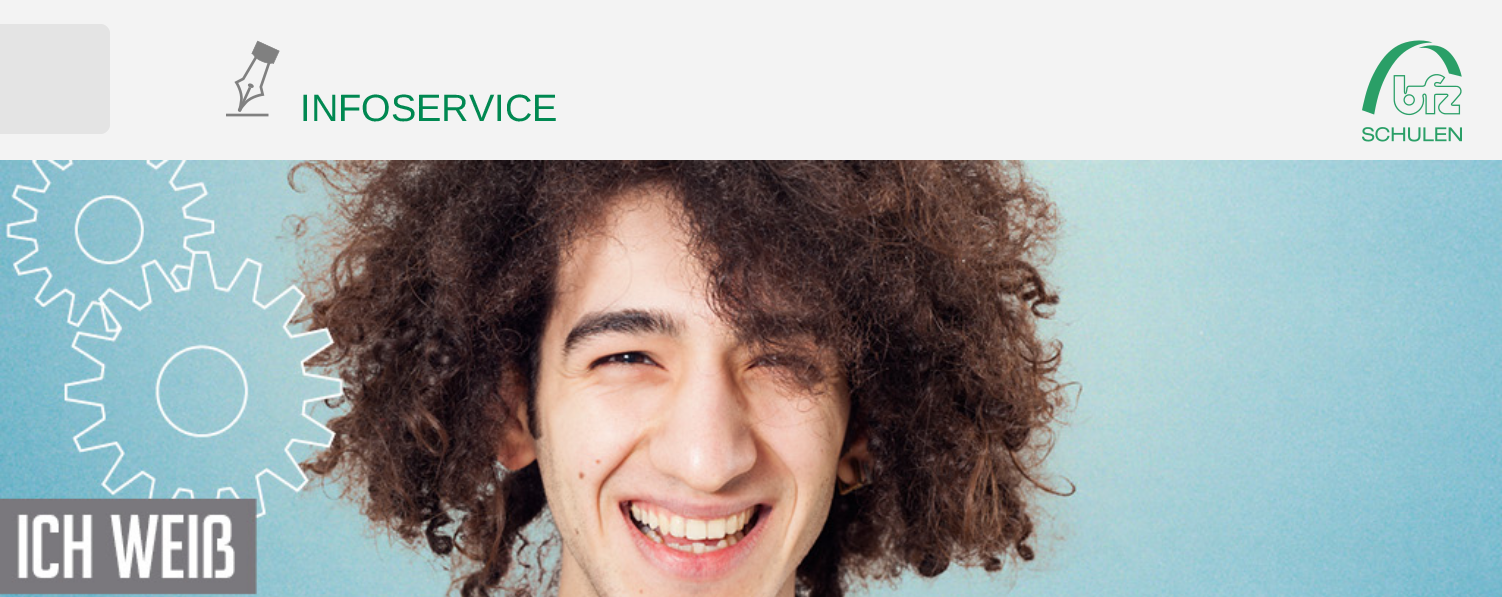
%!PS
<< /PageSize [1502 597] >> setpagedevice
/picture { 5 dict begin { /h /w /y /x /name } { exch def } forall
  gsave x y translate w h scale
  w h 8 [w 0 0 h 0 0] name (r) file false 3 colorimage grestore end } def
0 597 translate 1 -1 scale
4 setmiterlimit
0.953 setgray
0 0 1502 597 rectfill
(img1.rgb) 0 160 1502 437 picture
0.894 setgray
newpath 0 24 moveto 100 24 lineto 105.5 24 110 28.5 110 34 curveto 110 124 lineto 110 129.5 105.5 134 100 134 curveto 0 134 lineto closepath fill
(img2.rgb) 226 40 54 77 picture
/LiberationSans-Regular [38 0 0 -38 0 0] selectfont
0 0.533 0.318 setrgbcolor
300 121 moveto (INFOSERVICE) show
(img3.rgb) 1362 40 100 102 picture
showpage
